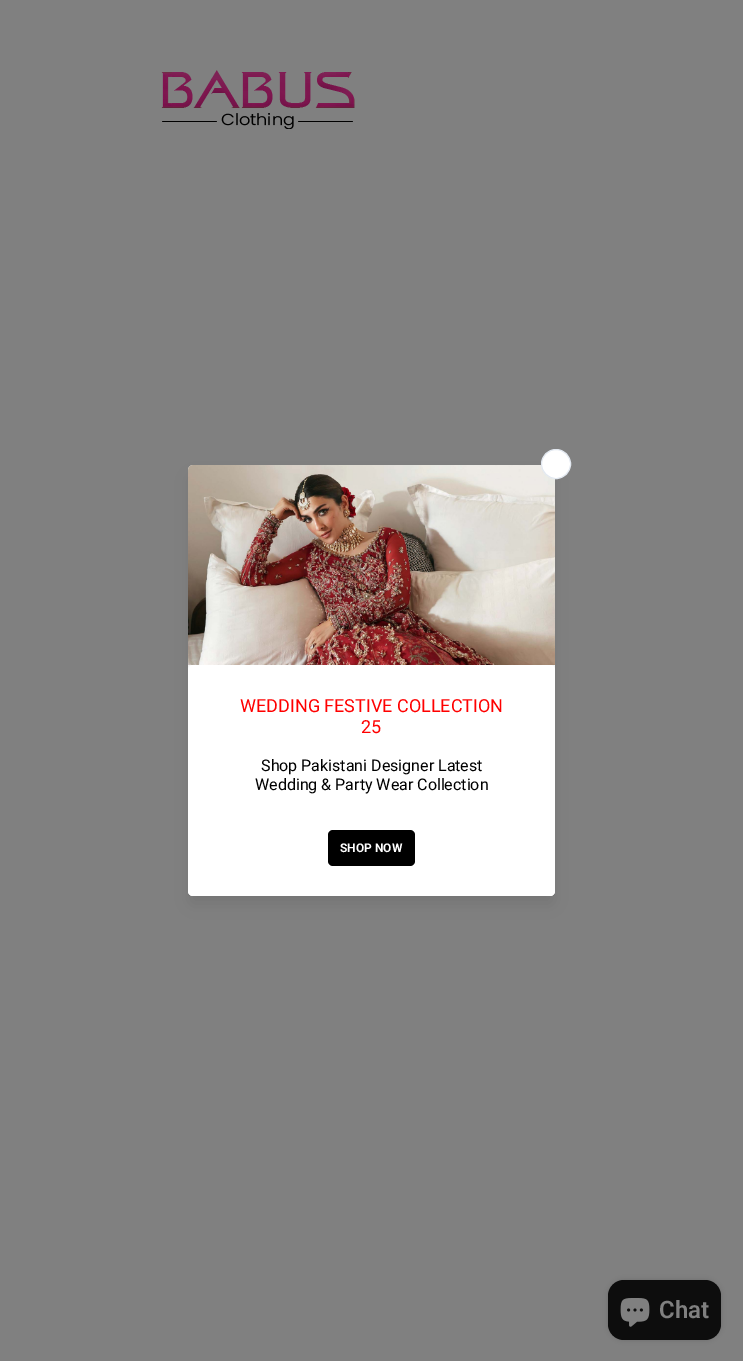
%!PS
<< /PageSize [743 1361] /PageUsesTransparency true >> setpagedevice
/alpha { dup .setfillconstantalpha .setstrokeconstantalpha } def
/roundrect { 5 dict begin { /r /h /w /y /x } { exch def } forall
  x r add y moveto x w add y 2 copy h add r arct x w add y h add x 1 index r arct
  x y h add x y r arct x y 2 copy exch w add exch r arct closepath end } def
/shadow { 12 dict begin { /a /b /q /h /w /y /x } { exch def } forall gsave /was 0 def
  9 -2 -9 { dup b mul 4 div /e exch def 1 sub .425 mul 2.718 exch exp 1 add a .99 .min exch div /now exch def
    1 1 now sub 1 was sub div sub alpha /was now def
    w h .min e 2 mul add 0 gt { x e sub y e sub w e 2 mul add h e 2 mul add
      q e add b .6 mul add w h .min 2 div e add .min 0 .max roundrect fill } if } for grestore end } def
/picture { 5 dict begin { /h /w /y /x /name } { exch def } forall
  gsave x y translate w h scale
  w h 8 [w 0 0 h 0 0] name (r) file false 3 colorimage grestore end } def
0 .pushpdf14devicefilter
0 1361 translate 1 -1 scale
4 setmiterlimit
0.502 setgray
0 0 743 1361 rectfill
(img1.rgb) 161 70 194 59 picture
0 setgray
191 478 361 425 2 7.5 0.1 shadow
1 setgray
188 465 367 431 5 roundrect fill
(img2.rgb) 188 465 367 200 picture
newpath 556 464 14.5 0 360 arc closepath gsave fill grestore
0.886 0.91 0.941 setrgbcolor
stroke
gsave
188 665 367 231 rectclip
0 setgray
191 668 361 225 2 10 0.12 shadow
grestore
1 setgray
188 665 367 231 5 roundrect fill
/Roboto-Regular [18 0 0 -18 0 0] selectfont
1 0 0 setrgbcolor
240 712 moveto (WEDDING FESTIVE COLLECTION) show
361 733 moveto (25) show
/Roboto-Regular [16 0 0 -16 0 0] selectfont
0 setgray
261 771 moveto (Shop Pakistani Designer Latest) show
255 790 moveto (Wedding & Party Wear Collection) show
328 830 87 36 5 roundrect fill
/Roboto-Bold [12 0 0 -12 0 0] selectfont
1 setgray
340 852 moveto (SHOP NOW) show
0 setgray
608 1280 113 60 16 2.5 0.15 shadow
0.051 setgray
608 1280 113 60 16 roundrect fill
(img3.rgb) 620 1298 30 29 picture
/Roboto-SemiBold [24 0 0 -24 0 0] selectfont
0.502 setgray
659 1318 moveto (Chat) show
.poppdf14devicefilter showpage
